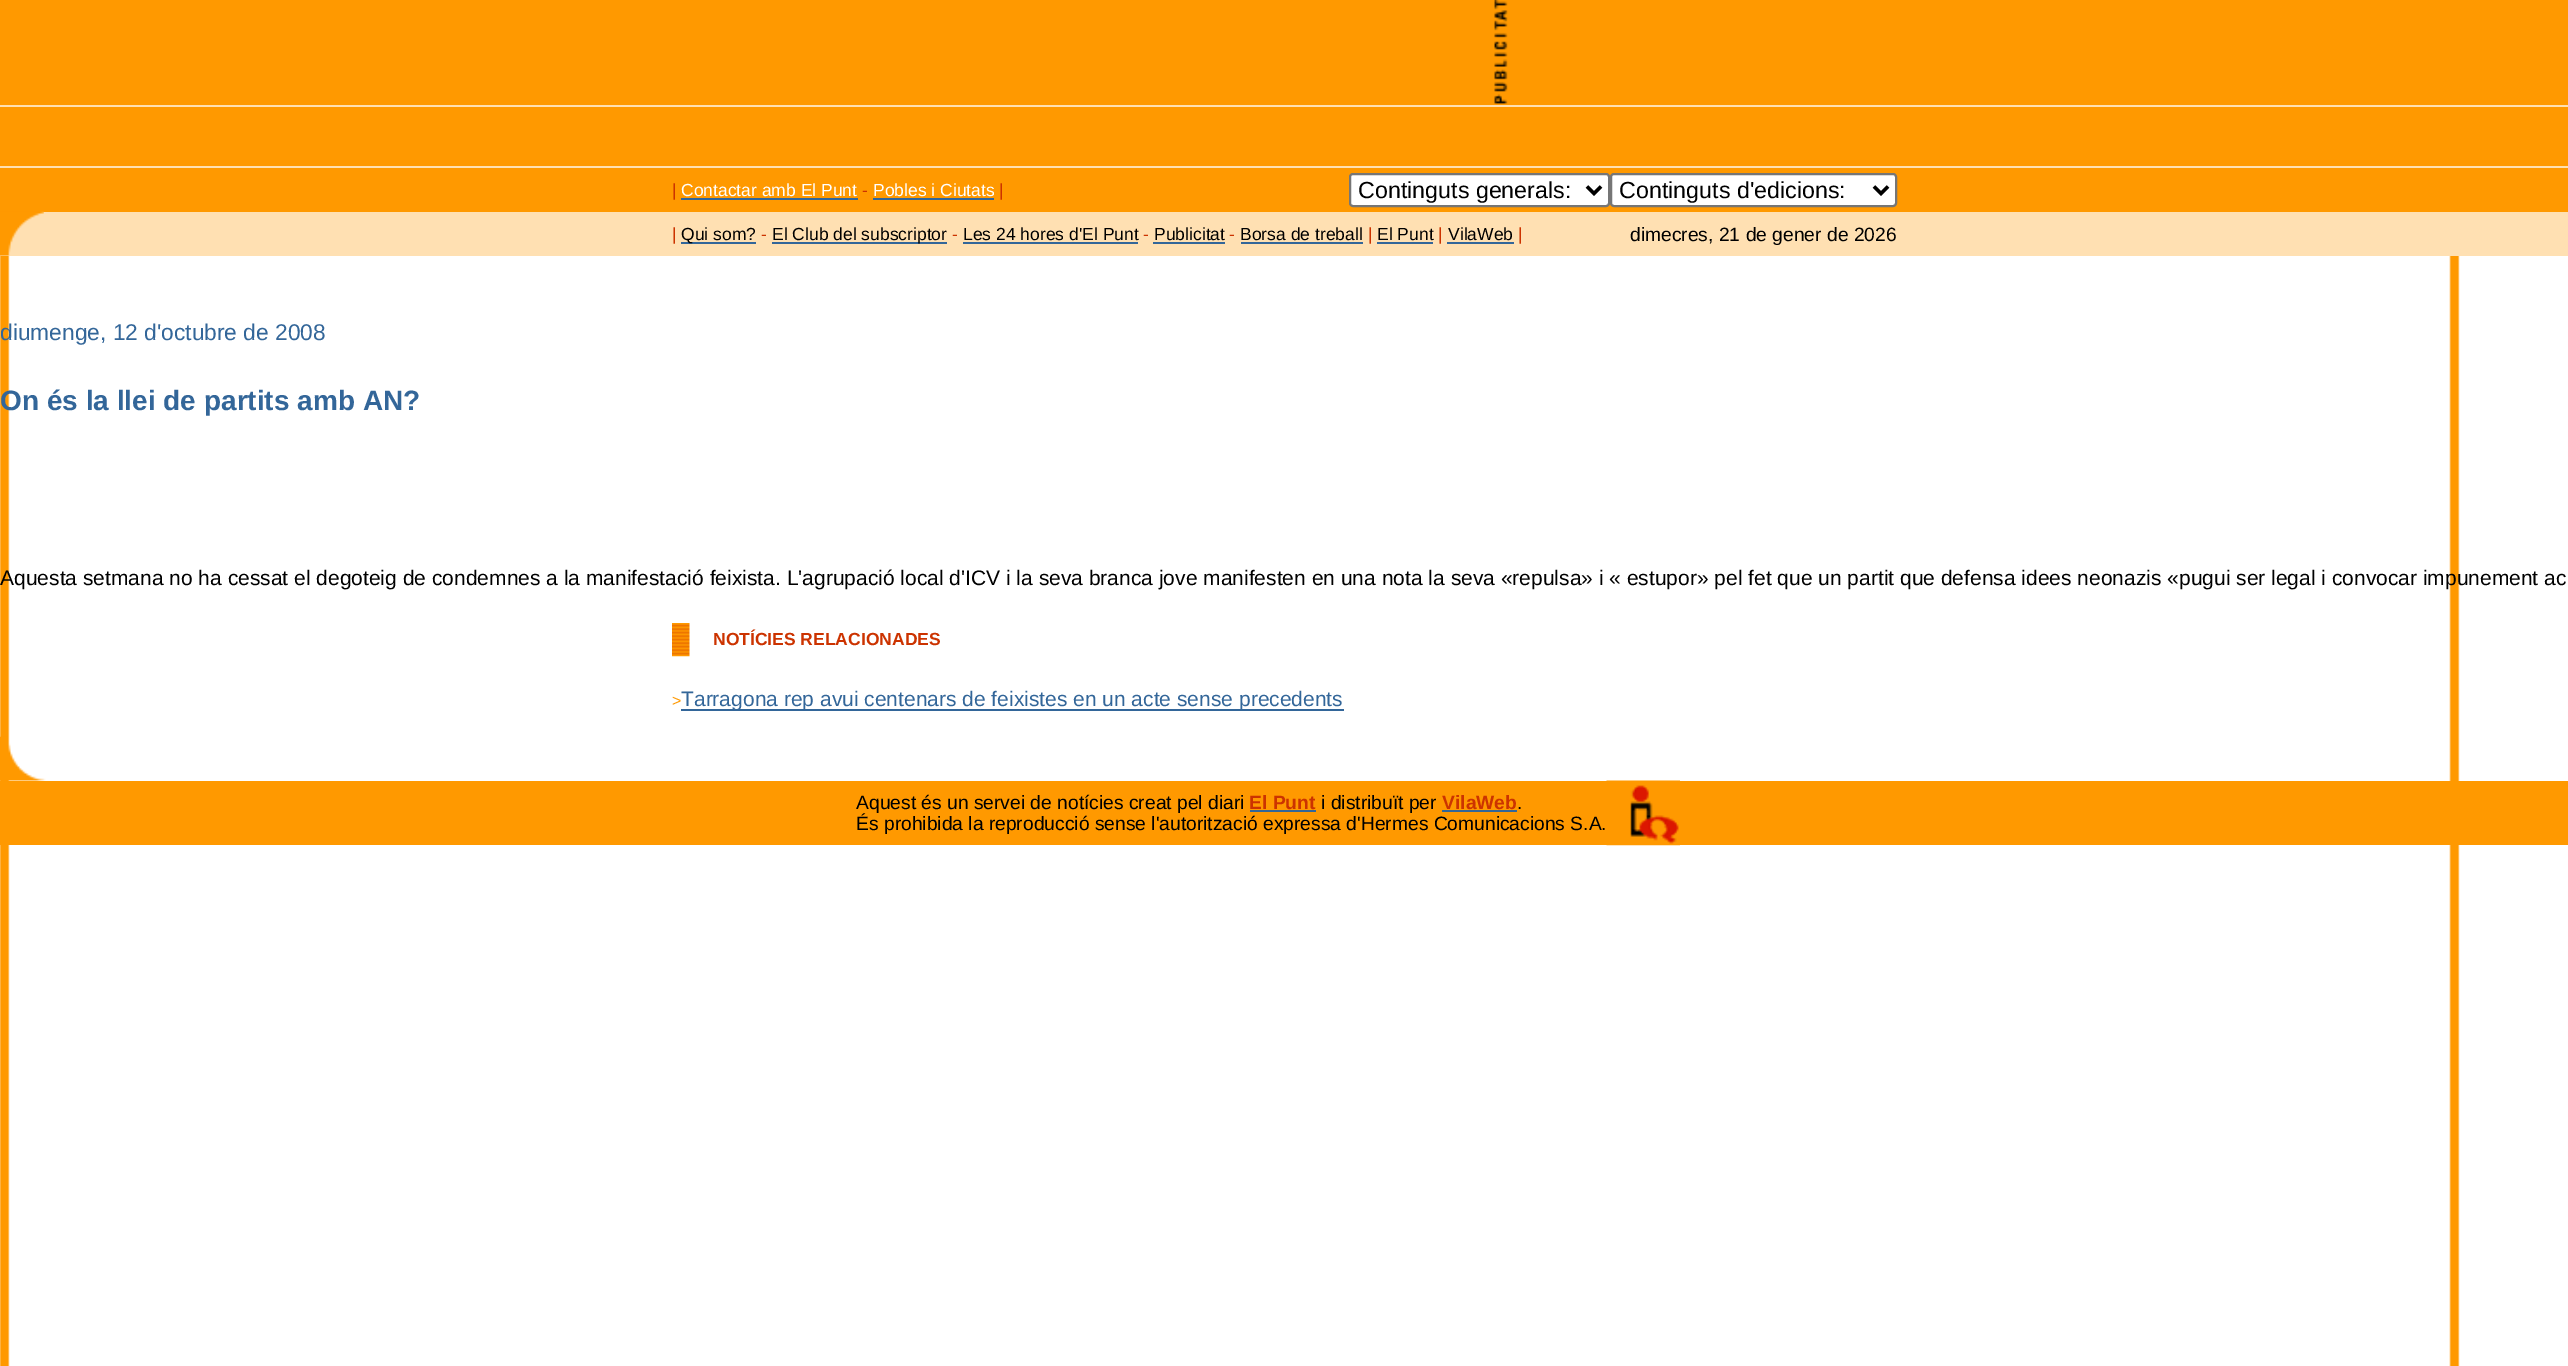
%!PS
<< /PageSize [2568 1366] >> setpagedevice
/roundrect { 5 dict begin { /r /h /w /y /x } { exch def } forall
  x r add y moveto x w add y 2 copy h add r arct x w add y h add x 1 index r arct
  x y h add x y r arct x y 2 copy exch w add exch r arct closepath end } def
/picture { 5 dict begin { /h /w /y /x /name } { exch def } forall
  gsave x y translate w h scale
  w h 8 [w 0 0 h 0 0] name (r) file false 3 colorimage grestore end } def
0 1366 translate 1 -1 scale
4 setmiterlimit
1 setgray
0 0 2568 1366 rectfill
(img1.rgb) 0 256 2460 1110 picture
1 0.6 0 setrgbcolor
0 0 2568 105 rectfill
(img2.rgb) 1494 0 14 104 picture
1 0.878 0.698 setrgbcolor
0 105 2568 2 rectfill
1 0.6 0 setrgbcolor
0 107 2568 59 rectfill
1 0.878 0.698 setrgbcolor
0 166 2568 2 rectfill
1 0.6 0 setrgbcolor
0 168 2568 44 rectfill
/LiberationSans-Regular [17.5 0 0 -17.5 0 0] selectfont
0.8 0.2 0 setrgbcolor
672 196 moveto (|) show
1 setgray
681 196 moveto (Contactar amb El Punt) show
0.2 0.4 0.6 setrgbcolor
681 198 177 2 rectfill
0.8 0.2 0 setrgbcolor
862 196 moveto (-) show
1 setgray
873 196 moveto (Pobles i Ciutats) show
0.2 0.4 0.6 setrgbcolor
873 198 121 2 rectfill
0.8 0.2 0 setrgbcolor
999 196 moveto (|) show
1 setgray
1350 174 259 32 3 roundrect gsave fill grestore
0.463 setgray
2 setlinewidth
stroke
0 setgray
3.5 setlinewidth
newpath 1587 186.5 moveto 1594 193.5 lineto 1601 186.5 lineto stroke
/LiberationSans-Regular [23.25 0 0 -23.25 0 0] selectfont
1358 198 moveto (Continguts generals:) show
1 setgray
1611 174 285 32 3 roundrect gsave fill grestore
0.463 setgray
2 setlinewidth
stroke
0 setgray
3.5 setlinewidth
newpath 1874 186.5 moveto 1881 193.5 lineto 1888 186.5 lineto stroke
1619 198 moveto (Continguts d'edicions:) show
1 0.878 0.698 setrgbcolor
0 212 2568 44 rectfill
(img3.rgb) 0 211 44 45 picture
/LiberationSans-Regular [17.5 0 0 -17.5 0 0] selectfont
0.8 0.2 0 setrgbcolor
672 240 moveto (|) show
0.2 0.4 0.6 setrgbcolor
681 242 75 2 rectfill
0 setgray
681 240 moveto (Qui som?) show
0.8 0.2 0 setrgbcolor
761 240 moveto (-) show
0.2 0.4 0.6 setrgbcolor
772 242 175 2 rectfill
0 setgray
772 240 moveto (El Club del subscriptor) show
0.8 0.2 0 setrgbcolor
952 240 moveto (-) show
0 setgray
963 240 moveto (Les 24 hores d'El Punt) show
0.2 0.4 0.6 setrgbcolor
963 242 175 2 rectfill
0.8 0.2 0 setrgbcolor
1143 240 moveto (-) show
0 setgray
1154 240 moveto (Publicitat) show
0.2 0.4 0.6 setrgbcolor
1153 242 72 2 rectfill
0.8 0.2 0 setrgbcolor
1229 240 moveto (-) show
0 setgray
1240 240 moveto (Borsa de treball) show
0.2 0.4 0.6 setrgbcolor
1241 242 122 2 rectfill
0.8 0.2 0 setrgbcolor
1368 240 moveto (|) show
0 setgray
1377 240 moveto (El Punt) show
0.2 0.4 0.6 setrgbcolor
1377 242 56 2 rectfill
0.8 0.2 0 setrgbcolor
1438 240 moveto (|) show
0 setgray
1448 240 moveto (VilaWeb) show
0.2 0.4 0.6 setrgbcolor
1447 242 67 2 rectfill
0.8 0.2 0 setrgbcolor
1518 240 moveto (|) show
/LiberationSans-Regular [19.25 0 0 -19.25 0 0] selectfont
0 setgray
1630 241 moveto (dimecres, 21 de gener de 2026) show
/LiberationSans-Regular [22.75 0 0 -22.75 0 0] selectfont
0.2 0.4 0.6 setrgbcolor
0 340 moveto (diumenge, 12 d'octubre de 2008) show
/LiberationSans-Bold [28 0 0 -28 0 0] selectfont
0 410 moveto (On és la llei de partits amb AN?) show
/LiberationSans-Regular [21 0 0 -21 0 0] selectfont
0 setgray
0 585 moveto (Aquesta setmana no ha cessat el degoteig de condemnes a la manifestació feixista. L'agrupació local d'ICV i la seva branca jove manifesten en una nota la seva «repulsa» i « estupor» pel fet que un partit que defensa idees neonazis «pugui ser legal i convocar impunement ac) show
(img4.rgb) 672 623 18 34 picture
/LiberationSans-Bold [17.5 0 0 -17.5 0 0] selectfont
0.8 0.2 0 setrgbcolor
713 645 moveto (NOTÍCIES RELACIONADES) show
/LiberationSans-Regular [16 0 0 -16 0 0] selectfont
1 0.6 0 setrgbcolor
672 706 moveto (>) show
0.2 0.4 0.6 setrgbcolor
681 709 663 2 rectfill
/LiberationSans-Regular [21 0 0 -21 0 0] selectfont
681 706 moveto (Tarragona rep avui centenars de feixistes en un acte sense precedents) show
(img5.rgb) 0 736 46 45 picture
1 0.6 0 setrgbcolor
0 781 2568 64 rectfill
/LiberationSans-Regular [19.25 0 0 -19.25 0 0] selectfont
0 setgray
856 809 moveto (Aquest és un servei de notícies creat pel diari) show
/LiberationSans-Bold [19.25 0 0 -19.25 0 0] selectfont
0.8 0.2 0 setrgbcolor
1249 809 moveto (El Punt) show
0.2 0.4 0.6 setrgbcolor
1250 810 66 2 rectfill
/LiberationSans-Regular [19.25 0 0 -19.25 0 0] selectfont
0 setgray
1321 809 moveto (i distribuït per) show
/LiberationSans-Bold [19.25 0 0 -19.25 0 0] selectfont
0.8 0.2 0 setrgbcolor
1442 809 moveto (VilaWeb) show
/LiberationSans-Regular [19.25 0 0 -19.25 0 0] selectfont
0 setgray
1517 809 moveto (.) show
0.2 0.4 0.6 setrgbcolor
1442 810 75 2 rectfill
0 setgray
856 830 moveto (És prohibida la reproducció sense l'autorització expressa d'Hermes Comunicacions S.A.) show
(img6.rgb) 1606 780 74 66 picture
showpage
